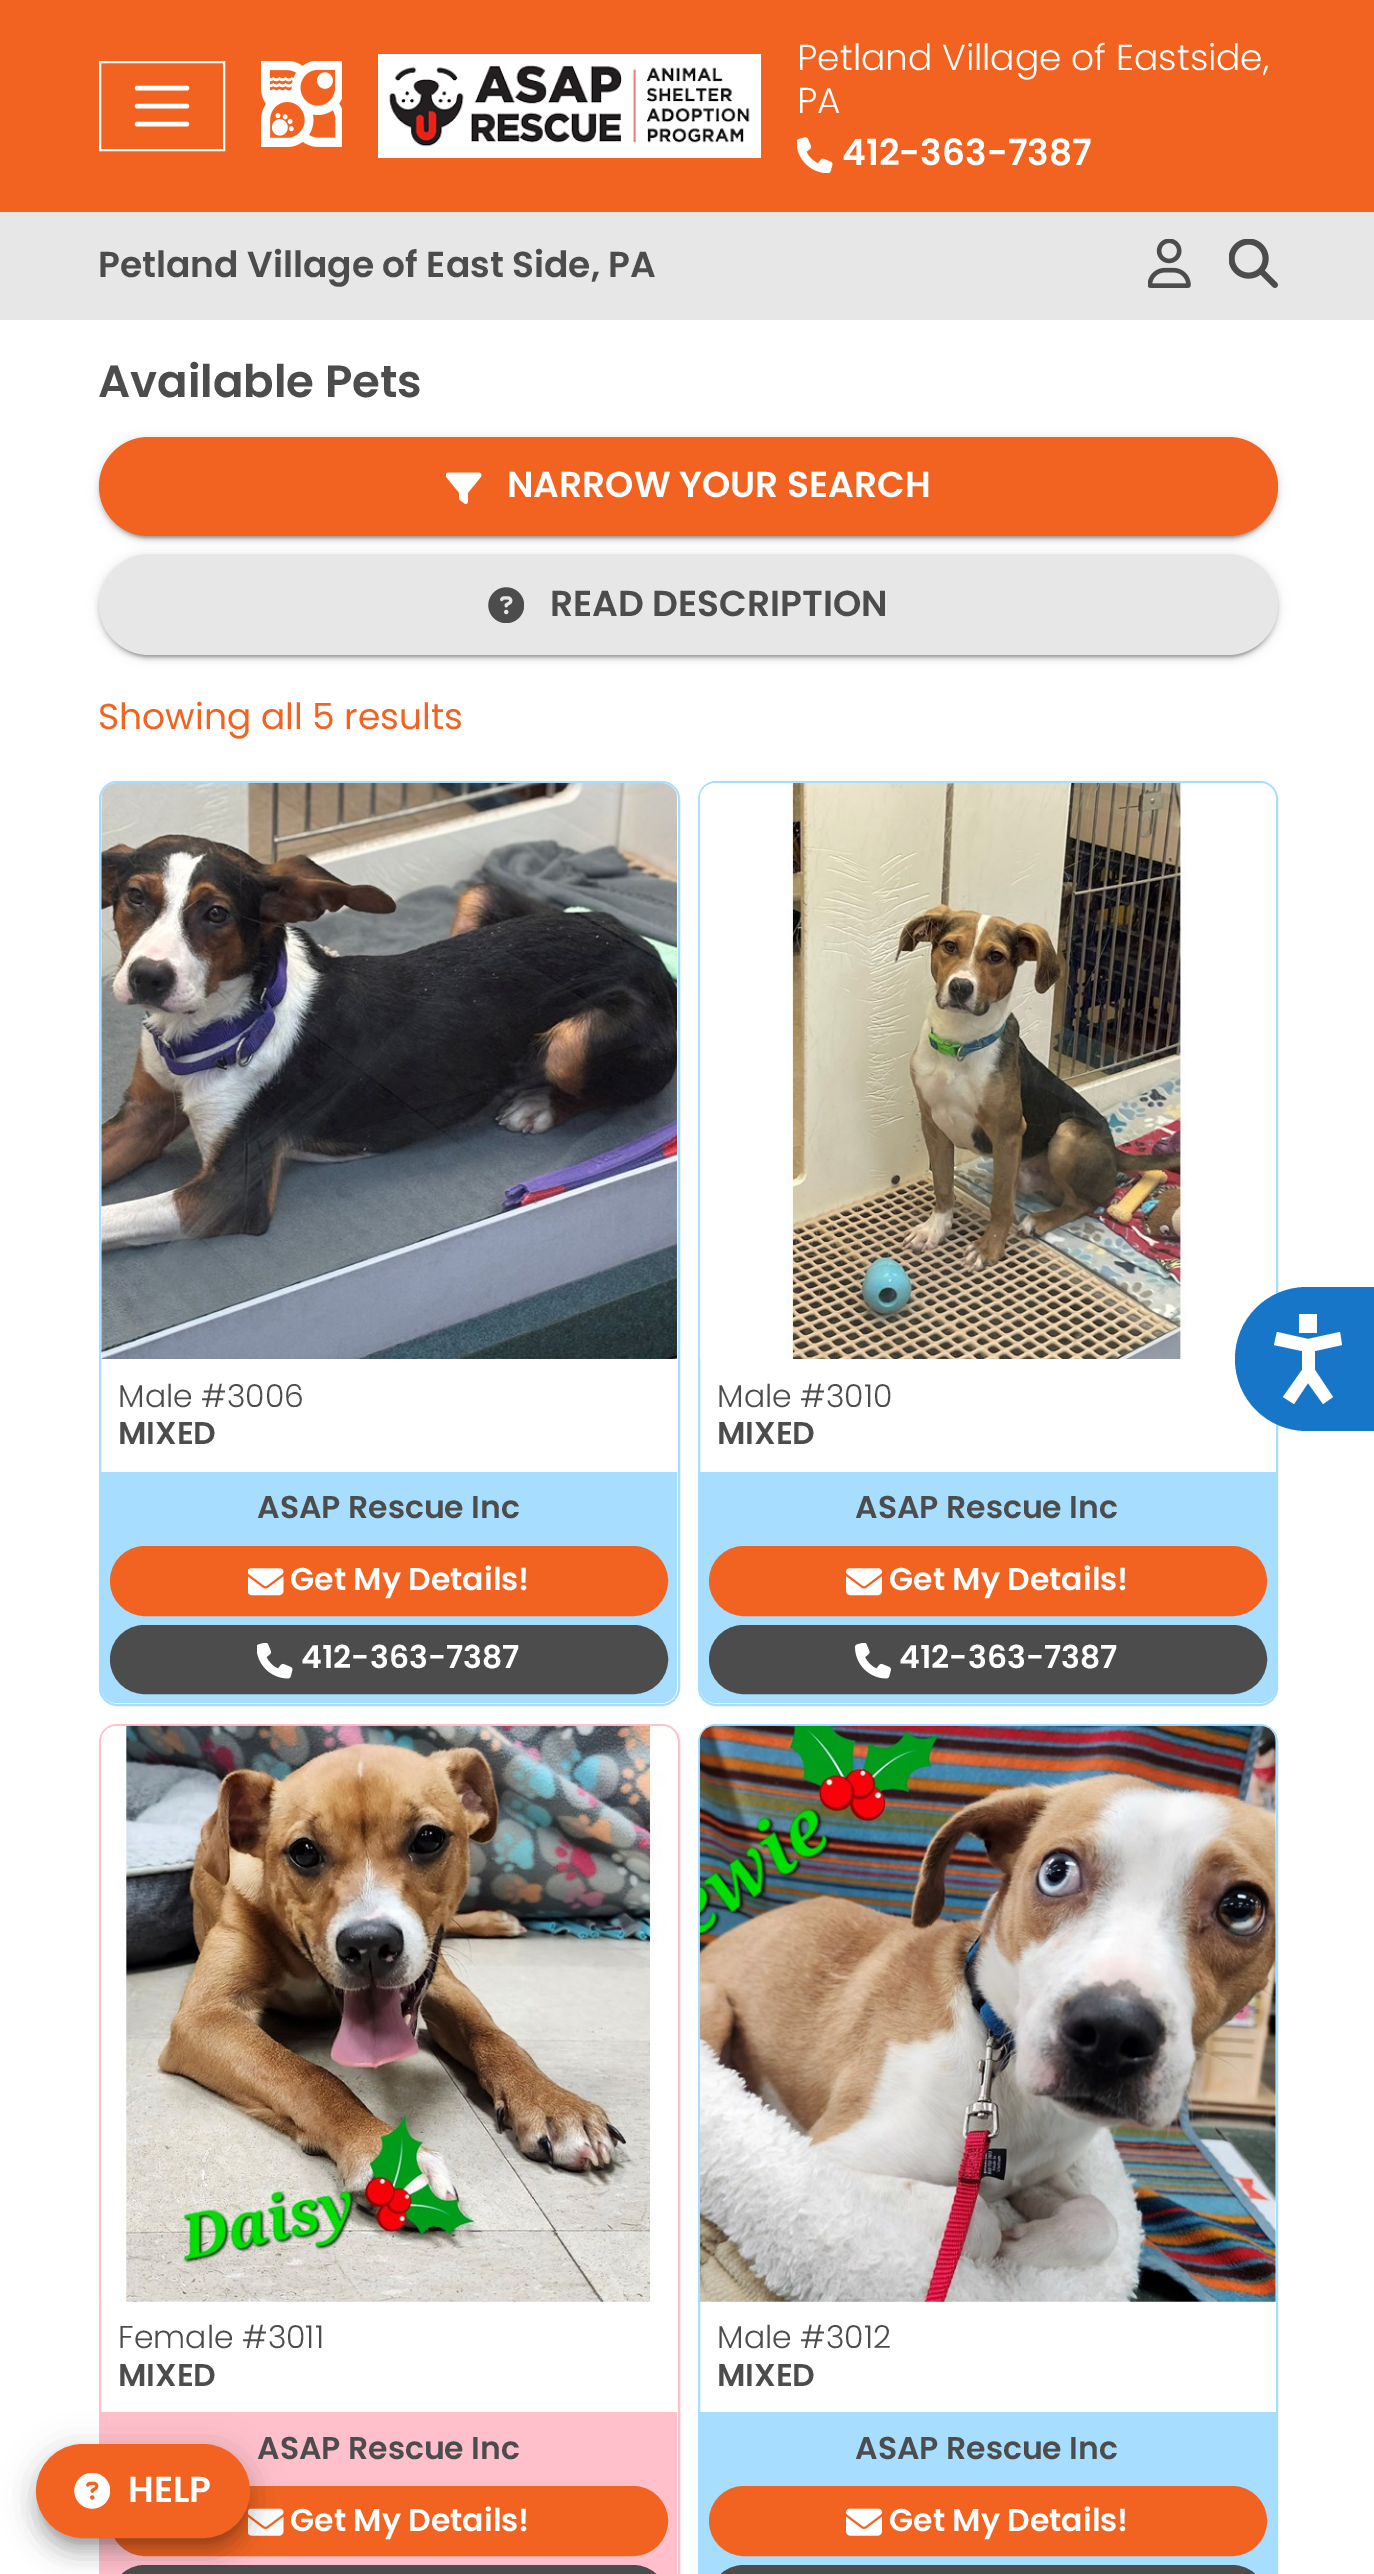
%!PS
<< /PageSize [1374 2574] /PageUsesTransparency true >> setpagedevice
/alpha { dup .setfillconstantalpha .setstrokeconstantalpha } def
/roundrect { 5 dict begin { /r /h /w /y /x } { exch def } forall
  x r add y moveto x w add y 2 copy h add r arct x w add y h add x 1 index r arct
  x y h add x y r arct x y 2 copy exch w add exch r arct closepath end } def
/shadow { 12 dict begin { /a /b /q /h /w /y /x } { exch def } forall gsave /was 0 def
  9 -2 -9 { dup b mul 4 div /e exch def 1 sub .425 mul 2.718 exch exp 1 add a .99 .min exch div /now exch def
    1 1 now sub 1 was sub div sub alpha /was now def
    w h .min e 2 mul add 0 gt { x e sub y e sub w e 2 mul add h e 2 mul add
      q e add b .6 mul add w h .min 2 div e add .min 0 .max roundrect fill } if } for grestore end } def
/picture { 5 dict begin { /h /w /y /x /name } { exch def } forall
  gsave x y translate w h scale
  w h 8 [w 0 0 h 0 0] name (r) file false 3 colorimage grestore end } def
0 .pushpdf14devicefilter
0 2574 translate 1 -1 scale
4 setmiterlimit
1 setgray
0 0 1374 2574 rectfill
0.906 setgray
0 212 1374 108 rectfill
0.949 0.388 0.133 setrgbcolor
0 0 1374 212 rectfill
1 setgray
2 setlinewidth
100 62 124 88 rectstroke
4.5 setlinewidth
1 setlinecap
newpath 137 88 moveto 187 88 lineto 137 106 moveto 187 106 lineto 137 124 moveto 187 124 lineto stroke
(img1.rgb) 261 61 81 86 picture
378 54 383 104 rectfill
(img2.rgb) 389 65 361 82 picture
/Poppins-Light [36 0 0 -36 0 0] selectfont
797 70 moveto (Petland Village of Eastside,) show
797 113 moveto (PA) show
(img3.rgb) 797 137 36 36 picture
/Poppins-SemiBold [36 0 0 -36 0 0] selectfont
842 165 moveto (412-363-7387) show
0.298 setgray
98 277 moveto (Petland Village of East Side, PA) show
(img4.rgb) 1148 239 43 49 picture
(img5.rgb) 1229 239 49 49 picture
/Poppins-SemiBold [45 0 0 -45 0 0] selectfont
98 397 moveto (Available Pets) show
0 setgray
99 439 1179 99 49.5 5.5 0.12 shadow
99 441 1179 99 49.5 2 0.14 shadow
104 448 1170 90 45 1 0.2 shadow
0.949 0.388 0.133 setrgbcolor
99 437 1179 99 49.5 roundrect fill
(img6.rgb) 446 472 36 32 picture
/Poppins-SemiBold [36 0 0 -36 0 0] selectfont
1 setgray
507 497 moveto (NARROW YOUR SEARCH) show
0 setgray
99 556 1179 101 50.5 5.5 0.12 shadow
99 558 1179 101 50.5 2 0.14 shadow
104 565 1170 92 46 1 0.2 shadow
0.906 setgray
99 554 1179 101 50.5 roundrect fill
(img7.rgb) 488 587 36 36 picture
0.298 setgray
550 616 moveto (READ DESCRIPTION) show
/Poppins-Regular [36 0 0 -36 0 0] selectfont
0.949 0.388 0.133 setrgbcolor
98 729 moveto (Showing all 5 results) show
0.655 0.871 1 setrgbcolor
2 setlinewidth
0 setlinecap
100 782 579 923 17 roundrect stroke
(img8.rgb) 101 783 577 576 picture
/Poppins-Light [31.5 0 0 -31.5 0 0] selectfont
0.298 setgray
118 1407 moveto (Male #3006) show
/Poppins-SemiBold [31.5 0 0 -31.5 0 0] selectfont
118 1444 moveto (MIXED) show
0.655 0.871 1 setrgbcolor
newpath 101 1472 moveto 677 1472 lineto 677 1687 lineto 677 1696 670 1703 661 1703 curveto 117 1703 lineto 108 1703 101 1696 101 1687 curveto closepath fill
0.298 setgray
257 1518 moveto (ASAP Rescue Inc) show
0.949 0.388 0.133 setrgbcolor
111 1547 556 68 34 roundrect gsave fill grestore
stroke
(img9.rgb) 248 1568 36 28 picture
1 setgray
290 1590 moveto (Get My Details!) show
0.298 setgray
111 1626 556 67 33.5 roundrect gsave fill grestore
stroke
(img10.rgb) 257 1643 36 36 picture
1 setgray
301 1668 moveto (412-363-7387) show
0.655 0.871 1 setrgbcolor
699 782 578 923 17 roundrect stroke
(img11.rgb) 699 783 577 576 picture
/Poppins-Light [31.5 0 0 -31.5 0 0] selectfont
0.298 setgray
717 1407 moveto (Male #3010) show
/Poppins-SemiBold [31.5 0 0 -31.5 0 0] selectfont
717 1444 moveto (MIXED) show
0.655 0.871 1 setrgbcolor
newpath 700 1472 moveto 1276 1472 lineto 1276 1687 lineto 1276 1696 1269 1703 1260 1703 curveto 716 1703 lineto 707 1703 700 1696 700 1687 curveto closepath fill
0.298 setgray
855 1518 moveto (ASAP Rescue Inc) show
0.949 0.388 0.133 setrgbcolor
710 1547 556 68 34 roundrect gsave fill grestore
stroke
(img12.rgb) 846 1568 36 28 picture
1 setgray
889 1590 moveto (Get My Details!) show
0.298 setgray
710 1626 556 67 33.5 roundrect gsave fill grestore
stroke
(img13.rgb) 855 1643 36 36 picture
1 setgray
899 1668 moveto (412-363-7387) show
1 0.753 0.796 setrgbcolor
100 1725 579 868 17 roundrect stroke
(img14.rgb) 101 1725 575 577 picture
/Poppins-Light [31.5 0 0 -31.5 0 0] selectfont
0.298 setgray
118 2348 moveto (Female #3011) show
/Poppins-SemiBold [31.5 0 0 -31.5 0 0] selectfont
118 2386 moveto (MIXED) show
1 0.753 0.796 setrgbcolor
101 2412 576 162 rectfill
0.298 setgray
257 2459 moveto (ASAP Rescue Inc) show
0.949 0.388 0.133 setrgbcolor
111 2487 556 68 34 roundrect gsave fill grestore
stroke
(img15.rgb) 248 2508 36 28 picture
1 setgray
290 2531 moveto (Get My Details!) show
0.298 setgray
111 2566 556 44 34 roundrect gsave fill grestore
stroke
0.655 0.871 1 setrgbcolor
699 1725 578 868 17 roundrect stroke
(img16.rgb) 699 1725 577 577 picture
/Poppins-Light [31.5 0 0 -31.5 0 0] selectfont
0.298 setgray
717 2348 moveto (Male #3012) show
/Poppins-SemiBold [31.5 0 0 -31.5 0 0] selectfont
717 2386 moveto (MIXED) show
0.655 0.871 1 setrgbcolor
700 2412 576 162 rectfill
0.298 setgray
855 2459 moveto (ASAP Rescue Inc) show
0.949 0.388 0.133 setrgbcolor
710 2487 556 68 34 roundrect gsave fill grestore
stroke
(img17.rgb) 846 2508 36 28 picture
1 setgray
889 2531 moveto (Get My Details!) show
0.298 setgray
710 2566 556 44 34 roundrect gsave fill grestore
stroke
0.094 0.463 0.788 setrgbcolor
newpath 1307 1287 moveto 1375 1287 lineto 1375 1431 lineto 1307 1431 lineto 1267 1431 1235 1399 1235 1359 curveto 1235 1319 1267 1287 1307 1287 curveto closepath fill
1 setgray
newpath 1302 1351 moveto 1274 1345 lineto 1277 1332 lineto 1308 1339 lineto 1340 1332 lineto 1342 1345 lineto 1315 1351 lineto 1315 1370 lineto 1333 1397 lineto 1323 1404 lineto 1308 1383 lineto 1294 1404 lineto 1283 1397 lineto 1302 1370 lineto closepath 1299 1314 moveto 1317 1314 lineto 1317 1333 lineto 1299 1333 lineto closepath fill
0 setgray
32 2446 222 103 51.5 16 0.12 shadow
34 2459 218 99 49.5 11 0.14 shadow
43 2462 200 81 40.5 5.5 0.2 shadow
0.949 0.388 0.133 setrgbcolor
37 2445 212 92 46 roundrect gsave fill grestore
stroke
(img18.rgb) 74 2473 36 36 picture
/Poppins-SemiBold [36 0 0 -36 0 0] selectfont
1 setgray
128 2502 moveto (HELP) show
.poppdf14devicefilter showpage
